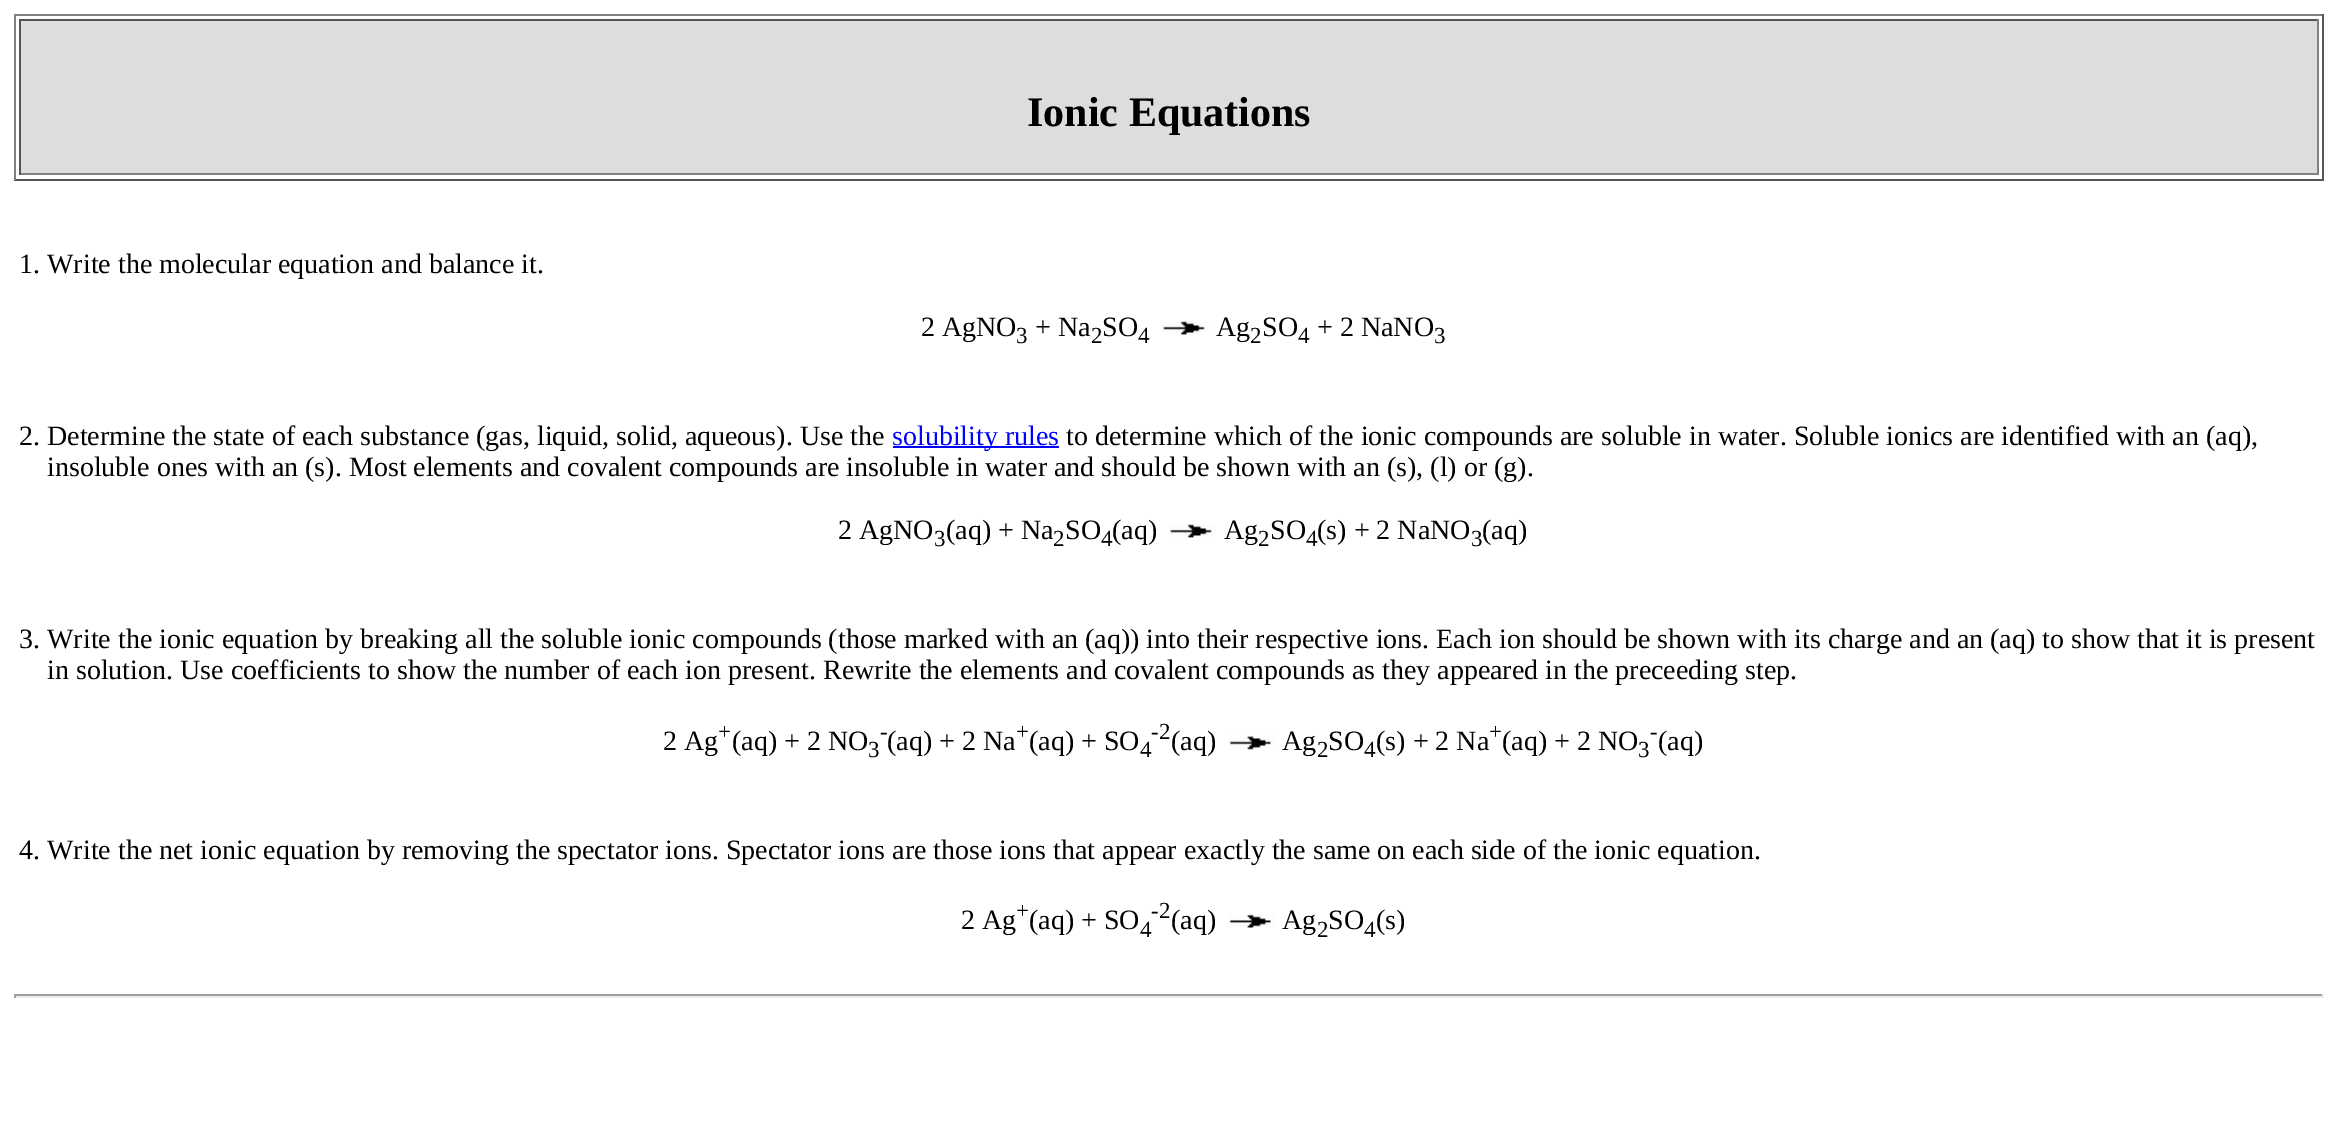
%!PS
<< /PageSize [2337 1128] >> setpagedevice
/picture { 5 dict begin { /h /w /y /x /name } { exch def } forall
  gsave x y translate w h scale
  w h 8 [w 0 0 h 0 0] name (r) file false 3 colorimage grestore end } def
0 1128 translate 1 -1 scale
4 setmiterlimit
1 setgray
0 0 2337 1128 rectfill
0.502 setgray
14 14 2310 2 rectfill
0.333 setgray
2322 14 2 166 rectfill
14 179 2310 2 rectfill
0.502 setgray
14 14 2 166 rectfill
0.867 setgray
21 21 2296 152 rectfill
0.333 setgray
19 19 2300 2 rectfill
0.502 setgray
2317 19 2 156 rectfill
19 173 2300 2 rectfill
0.333 setgray
19 19 2 156 rectfill
/LiberationSerif-Bold [42 0 0 -42 0 0] selectfont
0 setgray
1027 126 moveto (Ionic Equations) show
/LiberationSerif-Regular [28 0 0 -28 0 0] selectfont
19 273 moveto (1. Write the molecular equation and balance it.) show
921 336 moveto (2 AgNO) show
/LiberationSerif-Regular [23 0 0 -23 0 0] selectfont
1016 343 moveto (3) show
/LiberationSerif-Regular [28 0 0 -28 0 0] selectfont
1035 336 moveto (+ Na) show
/LiberationSerif-Regular [23 0 0 -23 0 0] selectfont
1091 343 moveto (2) show
/LiberationSerif-Regular [28 0 0 -28 0 0] selectfont
1102 336 moveto (SO) show
/LiberationSerif-Regular [23 0 0 -23 0 0] selectfont
1138 343 moveto (4) show
(img1.rgb) 1162 321 47 14 picture
/LiberationSerif-Regular [28 0 0 -28 0 0] selectfont
1216 336 moveto (Ag) show
/LiberationSerif-Regular [23 0 0 -23 0 0] selectfont
1250 343 moveto (2) show
/LiberationSerif-Regular [28 0 0 -28 0 0] selectfont
1262 336 moveto (SO) show
/LiberationSerif-Regular [23 0 0 -23 0 0] selectfont
1298 343 moveto (4) show
/LiberationSerif-Regular [28 0 0 -28 0 0] selectfont
1317 336 moveto (+ 2 NaNO) show
/LiberationSerif-Regular [23 0 0 -23 0 0] selectfont
1434 343 moveto (3) show
/LiberationSerif-Regular [28 0 0 -28 0 0] selectfont
19 445 moveto (2. Determine the state of each substance \(gas, liquid, solid, aqueous\). Use the) show
0 0 1 setrgbcolor
893 446 166 2 rectfill
892 445 moveto (solubility rules) show
0 setgray
1066 445 moveto (to determine which of the ionic compounds are soluble in water. Soluble ionics are identified with an \(aq\),) show
47 476 moveto (insoluble ones with an \(s\). Most elements and covalent compounds are insoluble in water and should be shown with an \(s\), \(l\) or \(g\).) show
838 539 moveto (2 AgNO) show
/LiberationSerif-Regular [23 0 0 -23 0 0] selectfont
934 546 moveto (3) show
/LiberationSerif-Regular [28 0 0 -28 0 0] selectfont
946 539 moveto (\(aq\) + Na) show
/LiberationSerif-Regular [23 0 0 -23 0 0] selectfont
1053 546 moveto (2) show
/LiberationSerif-Regular [28 0 0 -28 0 0] selectfont
1065 539 moveto (SO) show
/LiberationSerif-Regular [23 0 0 -23 0 0] selectfont
1101 546 moveto (4) show
/LiberationSerif-Regular [28 0 0 -28 0 0] selectfont
1112 539 moveto (\(aq\)) show
(img1.rgb) 1169 524 47 14 picture
1224 539 moveto (Ag) show
/LiberationSerif-Regular [23 0 0 -23 0 0] selectfont
1258 546 moveto (2) show
/LiberationSerif-Regular [28 0 0 -28 0 0] selectfont
1270 539 moveto (SO) show
/LiberationSerif-Regular [23 0 0 -23 0 0] selectfont
1306 546 moveto (4) show
/LiberationSerif-Regular [28 0 0 -28 0 0] selectfont
1317 539 moveto (\(s\) + 2 NaNO) show
/LiberationSerif-Regular [23 0 0 -23 0 0] selectfont
1471 546 moveto (3) show
/LiberationSerif-Regular [28 0 0 -28 0 0] selectfont
1482 539 moveto (\(aq\)) show
19 648 moveto (3. Write the ionic equation by breaking all the soluble ionic compounds \(those marked with an \(aq\)\) into their respective ions. Each ion should be shown with its charge and an \(aq\) to show that it is present) show
47 679 moveto (in solution. Use coefficients to show the number of each ion present. Rewrite the elements and covalent compounds as they appeared in the preceeding step.) show
663 750 moveto (2 Ag) show
/LiberationSerif-Regular [23 0 0 -23 0 0] selectfont
718 739 moveto (+) show
/LiberationSerif-Regular [28 0 0 -28 0 0] selectfont
732 750 moveto (\(aq\) + 2 NO) show
/LiberationSerif-Regular [23 0 0 -23 0 0] selectfont
880 739 moveto (-) show
/LiberationSerif-Regular [28 0 0 -28 0 0] selectfont
887 750 moveto (\(aq\) + 2 Na) show
/LiberationSerif-Regular [23 0 0 -23 0 0] selectfont
1016 739 moveto (+) show
/LiberationSerif-Regular [28 0 0 -28 0 0] selectfont
1029 750 moveto (\(aq\) + SO) show
/LiberationSerif-Regular [23 0 0 -23 0 0] selectfont
1151 739 moveto (-2) show
/LiberationSerif-Regular [28 0 0 -28 0 0] selectfont
1171 750 moveto (\(aq\)) show
1282 750 moveto (Ag) show
1328 750 moveto (SO) show
1376 750 moveto (\(s\) + 2 Na) show
/LiberationSerif-Regular [23 0 0 -23 0 0] selectfont
1489 739 moveto (+) show
/LiberationSerif-Regular [28 0 0 -28 0 0] selectfont
1502 750 moveto (\(aq\) + 2 NO) show
/LiberationSerif-Regular [23 0 0 -23 0 0] selectfont
1650 739 moveto (-) show
/LiberationSerif-Regular [28 0 0 -28 0 0] selectfont
1658 750 moveto (\(aq\)) show
/LiberationSerif-Regular [23 0 0 -23 0 0] selectfont
868 757 moveto (3) show
1140 757 moveto (4) show
(img2.rgb) 1229 735 47 15 picture
1317 757 moveto (2) show
1364 757 moveto (4) show
1638 757 moveto (3) show
/LiberationSerif-Regular [28 0 0 -28 0 0] selectfont
19 859 moveto (4. Write the net ionic equation by removing the spectator ions. Spectator ions are those ions that appear exactly the same on each side of the ionic equation.) show
961 929 moveto (2 Ag) show
/LiberationSerif-Regular [23 0 0 -23 0 0] selectfont
1016 918 moveto (+) show
/LiberationSerif-Regular [28 0 0 -28 0 0] selectfont
1029 929 moveto (\(aq\) + SO) show
/LiberationSerif-Regular [23 0 0 -23 0 0] selectfont
1140 937 moveto (4) show
1151 918 moveto (-2) show
/LiberationSerif-Regular [28 0 0 -28 0 0] selectfont
1171 929 moveto (\(aq\)) show
(img3.rgb) 1229 914 47 14 picture
1282 929 moveto (Ag) show
/LiberationSerif-Regular [23 0 0 -23 0 0] selectfont
1317 937 moveto (2) show
/LiberationSerif-Regular [28 0 0 -28 0 0] selectfont
1328 929 moveto (SO) show
/LiberationSerif-Regular [23 0 0 -23 0 0] selectfont
1364 937 moveto (4) show
/LiberationSerif-Regular [28 0 0 -28 0 0] selectfont
1376 929 moveto (\(s\)) show
0.624 setgray
14 994 2310 2 rectfill
0.933 setgray
2322 994 2 4 rectfill
14 996 2310 2 rectfill
0.624 setgray
14 994 2 4 rectfill
showpage
